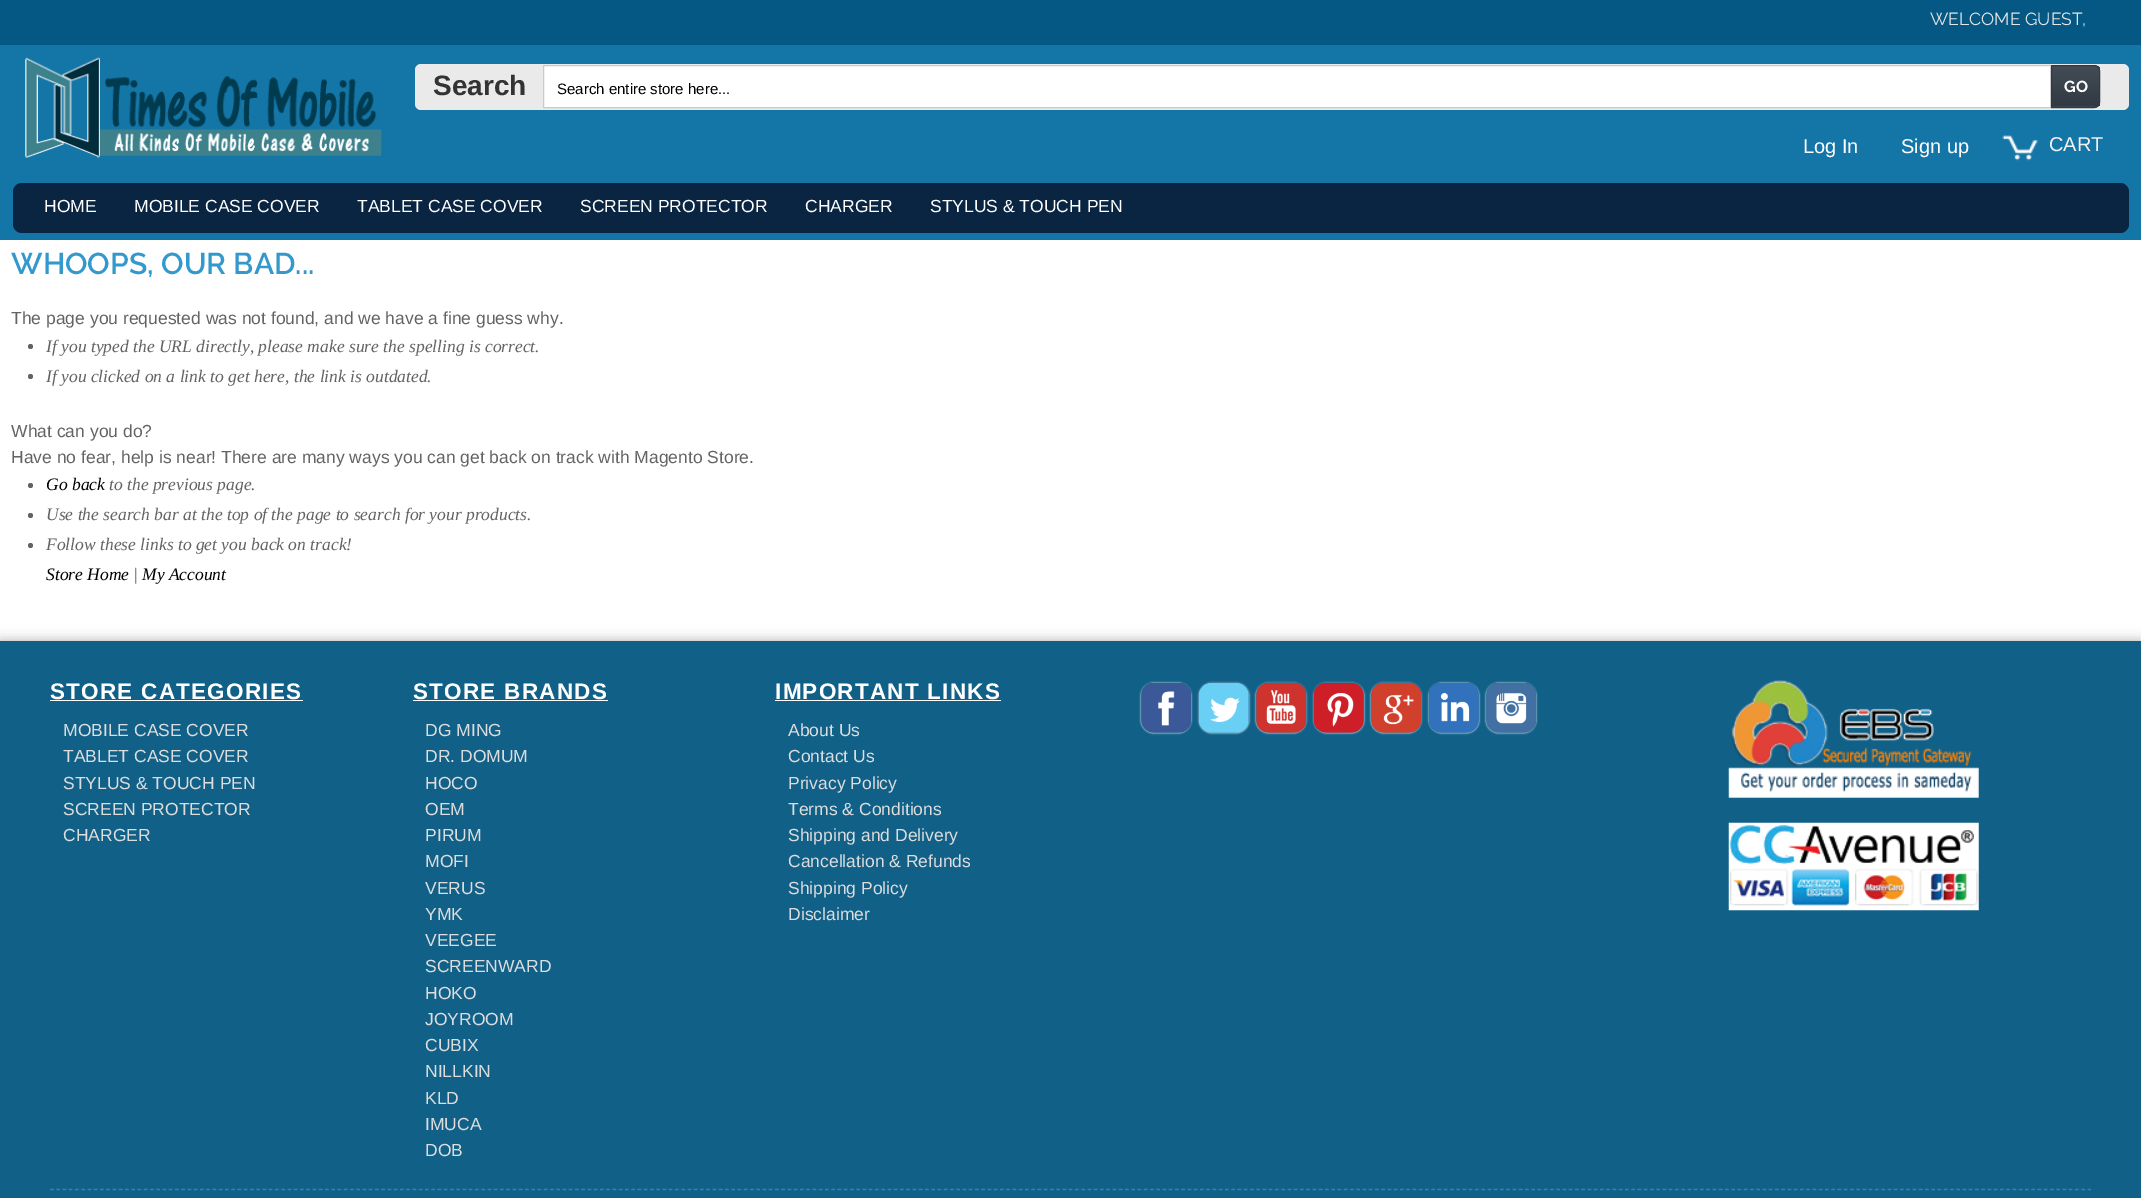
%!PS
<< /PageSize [2141 1198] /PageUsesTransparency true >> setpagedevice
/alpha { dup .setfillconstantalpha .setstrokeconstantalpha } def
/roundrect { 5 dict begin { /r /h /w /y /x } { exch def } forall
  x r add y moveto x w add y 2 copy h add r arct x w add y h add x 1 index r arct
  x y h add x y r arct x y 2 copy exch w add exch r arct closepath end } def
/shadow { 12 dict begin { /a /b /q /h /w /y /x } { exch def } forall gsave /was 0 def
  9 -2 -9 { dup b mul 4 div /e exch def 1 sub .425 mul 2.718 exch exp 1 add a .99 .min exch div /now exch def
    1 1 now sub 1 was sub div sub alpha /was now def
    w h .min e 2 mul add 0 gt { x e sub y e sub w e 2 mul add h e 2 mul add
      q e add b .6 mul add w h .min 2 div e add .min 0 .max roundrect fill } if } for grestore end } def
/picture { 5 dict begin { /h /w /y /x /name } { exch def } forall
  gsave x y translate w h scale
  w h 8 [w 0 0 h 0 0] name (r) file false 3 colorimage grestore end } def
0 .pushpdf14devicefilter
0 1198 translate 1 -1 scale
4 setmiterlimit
1 setgray
0 0 2141 1198 rectfill
0.016 0.345 0.514 setrgbcolor
0 0 2141 45 rectfill
/Raleway-Regular [17.5 0 0 -17.5 0 0] selectfont
0.902 setgray
1930 25 moveto (WELCOME GUEST,) show
0.078 0.459 0.655 setrgbcolor
0 45 2141 195 rectfill
(img1.rgb) 25 57 357 101 picture
0.918 setgray
415 64 1714 46 6 roundrect fill
/LiberationSans-Bold [28 0 0 -28 0 0] selectfont
0.2 setgray
433 95 moveto (Search) show
1 setgray
newpath 543.5 65.5 moveto 2050.5 65.5 lineto 2050.5 107.5 lineto 543.5 107.5 lineto closepath gsave fill grestore
0.792 setgray
stroke
/LiberationSans-Regular [15 0 0 -15 0 0] selectfont
0 setgray
557 94 moveto (Search entire store here...) show
0.235 0.271 0.306 setrgbcolor
newpath 2051 65 moveto 2094 65 lineto 2097.5 65 2100 67.5 2100 71 curveto 2100 102 lineto 2100 105.5 2097.5 108 2094 108 curveto 2051 108 lineto closepath fill
gsave
newpath 2051 65 moveto 2094 65 lineto 2097.5 65 2100 67.5 2100 71 curveto 2100 102 lineto 2100 105.5 2097.5 108 2094 108 curveto 2051 108 lineto closepath clip newpath
gsave newpath 2052 66 moveto 2100 66 lineto 2100 106 lineto 2052 106 lineto closepath clip newpath
<< /ShadingType 2 /ColorSpace /DeviceRGB /Coords [2076 66 2076 106] /Extend [true true] /Function << /FunctionType 2 /Domain [0 1] /C0 [0.267 0.298 0.333] /C1 [0.192 0.227 0.267] /N 1 >> >> shfill grestore
grestore
0.192 0.227 0.267 setrgbcolor
newpath 2051.5 65.5 moveto 2094 65.5 lineto 2097 65.5 2099.5 68 2099.5 71 curveto 2099.5 102 lineto 2099.5 105 2097 107.5 2094 107.5 curveto 2051.5 107.5 lineto closepath stroke
/Raleway-Bold [16 0 0 -16 0 0] selectfont
1 setgray
2064 92 moveto (GO) show
/LiberationSans-Regular [20 0 0 -20 0 0] selectfont
1803 153 moveto (Log In) show
1901 153 moveto (Sign up) show
(img2.rgb) 2002 135 36 26 picture
0.949 setgray
2049 151 moveto (CART) show
0.035 0.145 0.255 setrgbcolor
13 183 2116 50 9 roundrect fill
/LiberationSans-Regular [17.5 0 0 -17.5 0 0] selectfont
1 setgray
44 212 moveto (HOME) show
134 212 moveto (MOBILE CASE COVER) show
357 212 moveto (TABLET CASE COVER) show
580 212 moveto (SCREEN PROTECTOR) show
805 212 moveto (CHARGER) show
930 212 moveto (STYLUS & TOUCH PEN) show
/Raleway-SemiBold [30 0 0 -30 0 0] selectfont
0.2 0.6 0.8 setrgbcolor
11 274 moveto (WHOOPS, OUR BAD...) show
/LiberationSans-Regular [17.5 0 0 -17.5 0 0] selectfont
0.388 setgray
11 324 moveto (The page you requested was not found, and we have a fine guess why.) show
newpath 30.5 346.5 2.5 0 360 arc closepath fill
/LiberationSerif-Italic [17.5 0 0 -17.5 0 0] selectfont
46 352 moveto (If you typed the URL directly, please make sure the spelling is correct.) show
newpath 30.5 376.5 2.5 0 360 arc closepath fill
46 382 moveto (If you clicked on a link to get here, the link is outdated.) show
/LiberationSans-Regular [17.5 0 0 -17.5 0 0] selectfont
11 437 moveto (What can you do?) show
11 463 moveto (Have no fear, help is near! There are many ways you can get back on track with Magento Store.) show
newpath 30.5 485.5 2.5 0 360 arc closepath fill
/LiberationSerif-Italic [17.5 0 0 -17.5 0 0] selectfont
0 setgray
46 490 moveto (Go back) show
0.388 setgray
109 490 moveto (to the previous page.) show
newpath 30.5 515.5 2.5 0 360 arc closepath fill
46 520 moveto (Use the search bar at the top of the page to search for your products.) show
newpath 30.5 545.5 2.5 0 360 arc closepath fill
46 550 moveto (Follow these links to get you back on track!) show
0 setgray
46 580 moveto (Store Home) show
0.388 setgray
133 580 moveto (|) show
0 setgray
142 580 moveto (My Account) show
0.667 setgray
0 641 2141 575 0 6 1 shadow
0.067 0.376 0.533 setrgbcolor
0 641 2141 557 rectfill
/LiberationSans-Bold [22.5 0 0 -22.5 0 0] selectfont
1 setgray
50 699 moveto 1.25 0 (STORE CATEGORIES) ashow
50 700 253 1 rectfill
/LiberationSans-Regular [17.5 0 0 -17.5 0 0] selectfont
0.867 setgray
63 736 moveto (MOBILE CASE COVER) show
63 762 moveto (TABLET CASE COVER) show
63 789 moveto (STYLUS & TOUCH PEN) show
63 815 moveto (SCREEN PROTECTOR) show
63 841 moveto (CHARGER) show
/LiberationSans-Bold [22.5 0 0 -22.5 0 0] selectfont
1 setgray
413 699 moveto 1.25 0 (STORE BRANDS) ashow
413 700 195 1 rectfill
/LiberationSans-Regular [17.5 0 0 -17.5 0 0] selectfont
0.867 setgray
425 736 moveto (DG MING) show
425 762 moveto (DR. DOMUM) show
425 789 moveto (HOCO) show
425 815 moveto (OEM) show
425 841 moveto (PIRUM) show
425 867 moveto (MOFI) show
425 894 moveto (VERUS) show
425 920 moveto (YMK) show
425 946 moveto (VEEGEE) show
425 972 moveto (SCREENWARD) show
425 999 moveto (HOKO) show
425 1025 moveto (JOYROOM) show
425 1051 moveto (CUBIX) show
425 1077 moveto (NILLKIN) show
425 1104 moveto (KLD) show
425 1130 moveto (IMUCA) show
425 1156 moveto (DOB) show
/LiberationSans-Bold [22.5 0 0 -22.5 0 0] selectfont
1 setgray
775 699 moveto 1.25 0 (IMPORTANT LINKS) ashow
775 700 226 1 rectfill
/LiberationSans-Regular [17.5 0 0 -17.5 0 0] selectfont
0.867 setgray
788 736 moveto (About Us) show
788 762 moveto (Contact Us) show
788 789 moveto (Privacy Policy) show
788 815 moveto (Terms & Conditions) show
788 841 moveto (Shipping and Delivery) show
788 867 moveto (Cancellation & Refunds) show
788 894 moveto (Shipping Policy) show
788 920 moveto (Disclaimer) show
1 setgray
1141 683 50 50 13 1 1 shadow
(img3.rgb) 1141 683 50 50 picture
1199 683 50 50 13 1 1 shadow
(img4.rgb) 1198 682 51 51 picture
1256 683 50 50 13 1 1 shadow
(img5.rgb) 1256 682 51 51 picture
1314 683 50 50 13 1 1 shadow
(img6.rgb) 1313 682 51 51 picture
1371 683 50 50 13 1 1 shadow
(img7.rgb) 1371 682 51 51 picture
1429 683 50 50 13 1 1 shadow
(img8.rgb) 1429 683 50 50 picture
1486 683 50 50 13 1 1 shadow
(img9.rgb) 1486 683 50 50 picture
(img10.rgb) 1728 680 251 118 picture
(img11.rgb) 1728 822 251 89 picture
0.165 0.525 0.706 setrgbcolor
1.2 setlinewidth
[3.75 2.5] 0 setdash
newpath 50 1189.5 moveto 2091 1189.5 lineto stroke
.poppdf14devicefilter showpage
